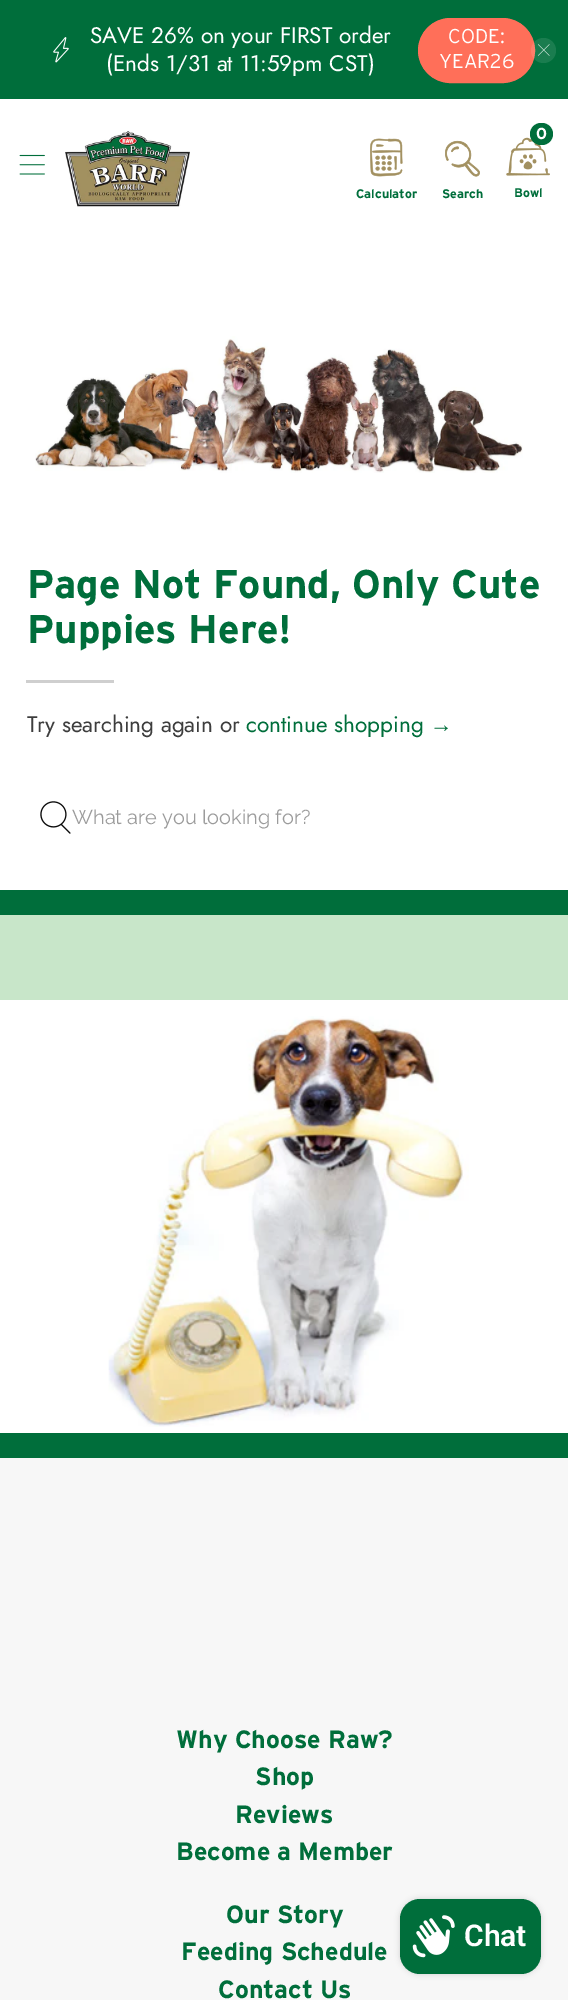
%!PS
<< /PageSize [568 2000] /PageUsesTransparency true >> setpagedevice
/alpha { dup .setfillconstantalpha .setstrokeconstantalpha } def
/roundrect { 5 dict begin { /r /h /w /y /x } { exch def } forall
  x r add y moveto x w add y 2 copy h add r arct x w add y h add x 1 index r arct
  x y h add x y r arct x y 2 copy exch w add exch r arct closepath end } def
/shadow { 12 dict begin { /a /b /q /h /w /y /x } { exch def } forall gsave /was 0 def
  9 -2 -9 { dup b mul 4 div /e exch def 1 sub .425 mul 2.718 exch exp 1 add a .99 .min exch div /now exch def
    1 1 now sub 1 was sub div sub alpha /was now def
    w h .min e 2 mul add 0 gt { x e sub y e sub w e 2 mul add h e 2 mul add
      q e add b .6 mul add w h .min 2 div e add .min 0 .max roundrect fill } if } for grestore end } def
/picture { 5 dict begin { /h /w /y /x /name } { exch def } forall
  gsave x y translate w h scale
  w h 8 [w 0 0 h 0 0] name (r) file false 3 colorimage grestore end } def
0 .pushpdf14devicefilter
0 2000 translate 1 -1 scale
4 setmiterlimit
1 setgray
0 0 568 2000 rectfill
0 0.431 0.231 setrgbcolor
0 0 568 99 rectfill
(img1.rgb) 53 37 16 26 picture
/Jost-Regular [22.5 0 0 -22.5 0 0] selectfont
1 setgray
90 43 moveto (SAVE 26% on your FIRST order) show
106 71 moveto (\(Ends 1/31 at 11:59pm CST\)) show
1 0.435 0.349 setrgbcolor
418.5 18.5 116 64 32 roundrect gsave fill grestore
stroke
/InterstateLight-Light [20 0 0 -20 0 0] selectfont
1 setgray
448 43 moveto (CODE:) show
439 68 moveto (YEAR26) show
0.1 alpha
newpath 543.5 50.5 12.5 0 360 arc closepath fill
1 alpha
(img2.rgb) 538 44 12 12 picture
(img3.rgb) 19 154 26 21 picture
(img4.rgb) 65 131 125 76 picture
(img5.rgb) 370 138 33 39 picture
/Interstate-Bold [12.5 0 0 -12.5 0 0] selectfont
0 0.431 0.231 setrgbcolor
356 198 moveto (Calculator) show
(img6.rgb) 445 140 35 37 picture
442 198 moveto (Search) show
(img7.rgb) 506 137 44 39 picture
530 123 23 22 11 roundrect fill
/Interstate-Bold [16 0 0 -16 0 0] selectfont
1 setgray
536 139 moveto (0) show
/Interstate-Bold [12.5 0 0 -12.5 0 0] selectfont
0 0.431 0.231 setrgbcolor
514 197 moveto (Bowl) show
(img8.rgb) 35 336 488 137 picture
/Interstate-Bold [40 0 0 -40 0 0] selectfont
27 598 moveto (Page Not Found, Only Cute) show
27 643 moveto (Puppies Here!) show
0.812 setgray
26 680 88 3 rectfill
/Jost-Regular [22.5 0 0 -22.5 0 0] selectfont
0.239 setgray
27 732 moveto (Try searching again or) show
0 0.431 0.231 setrgbcolor
246 732 moveto (continue shopping) show
/LiberationSans-Regular [22.5 0 0 -22.5 0 0] selectfont
430 732 moveto (→) show
(img9.rgb) 40 801 31 33 picture
/Raleway-Regular [20 0 0 -20 0 0] selectfont
0.608 setgray
72 824 moveto (What are you looking for?) show
0 0.431 0.231 setrgbcolor
0 890 568 25 rectfill
0.784 0.902 0.788 setrgbcolor
0 915 568 85 rectfill
(img10.rgb) 108 1016 361 411 picture
0 0.431 0.231 setrgbcolor
0 1433 568 25 rectfill
0.969 setgray
0 1458 568 542 rectfill
/Interstate-Bold [25 0 0 -25 0 0] selectfont
0 0.431 0.231 setrgbcolor
176 1748 moveto (Why Choose Raw?) show
255 1785 moveto (Shop) show
235 1823 moveto (Reviews) show
176 1860 moveto (Become a Member) show
226 1923 moveto (Our Story) show
181 1960 moveto (Feeding Schedule) show
218 1998 moveto (Contact Us) show
0 setgray
400 1899 141 75 20 3 0.15 shadow
0 0.431 0.231 setrgbcolor
400 1899 141 75 20 roundrect fill
(img11.rgb) 412 1915 43 43 picture
/Roboto-SemiBold [30 0 0 -30 0 0] selectfont
1 setgray
464 1946 moveto (Chat) show
.poppdf14devicefilter showpage
